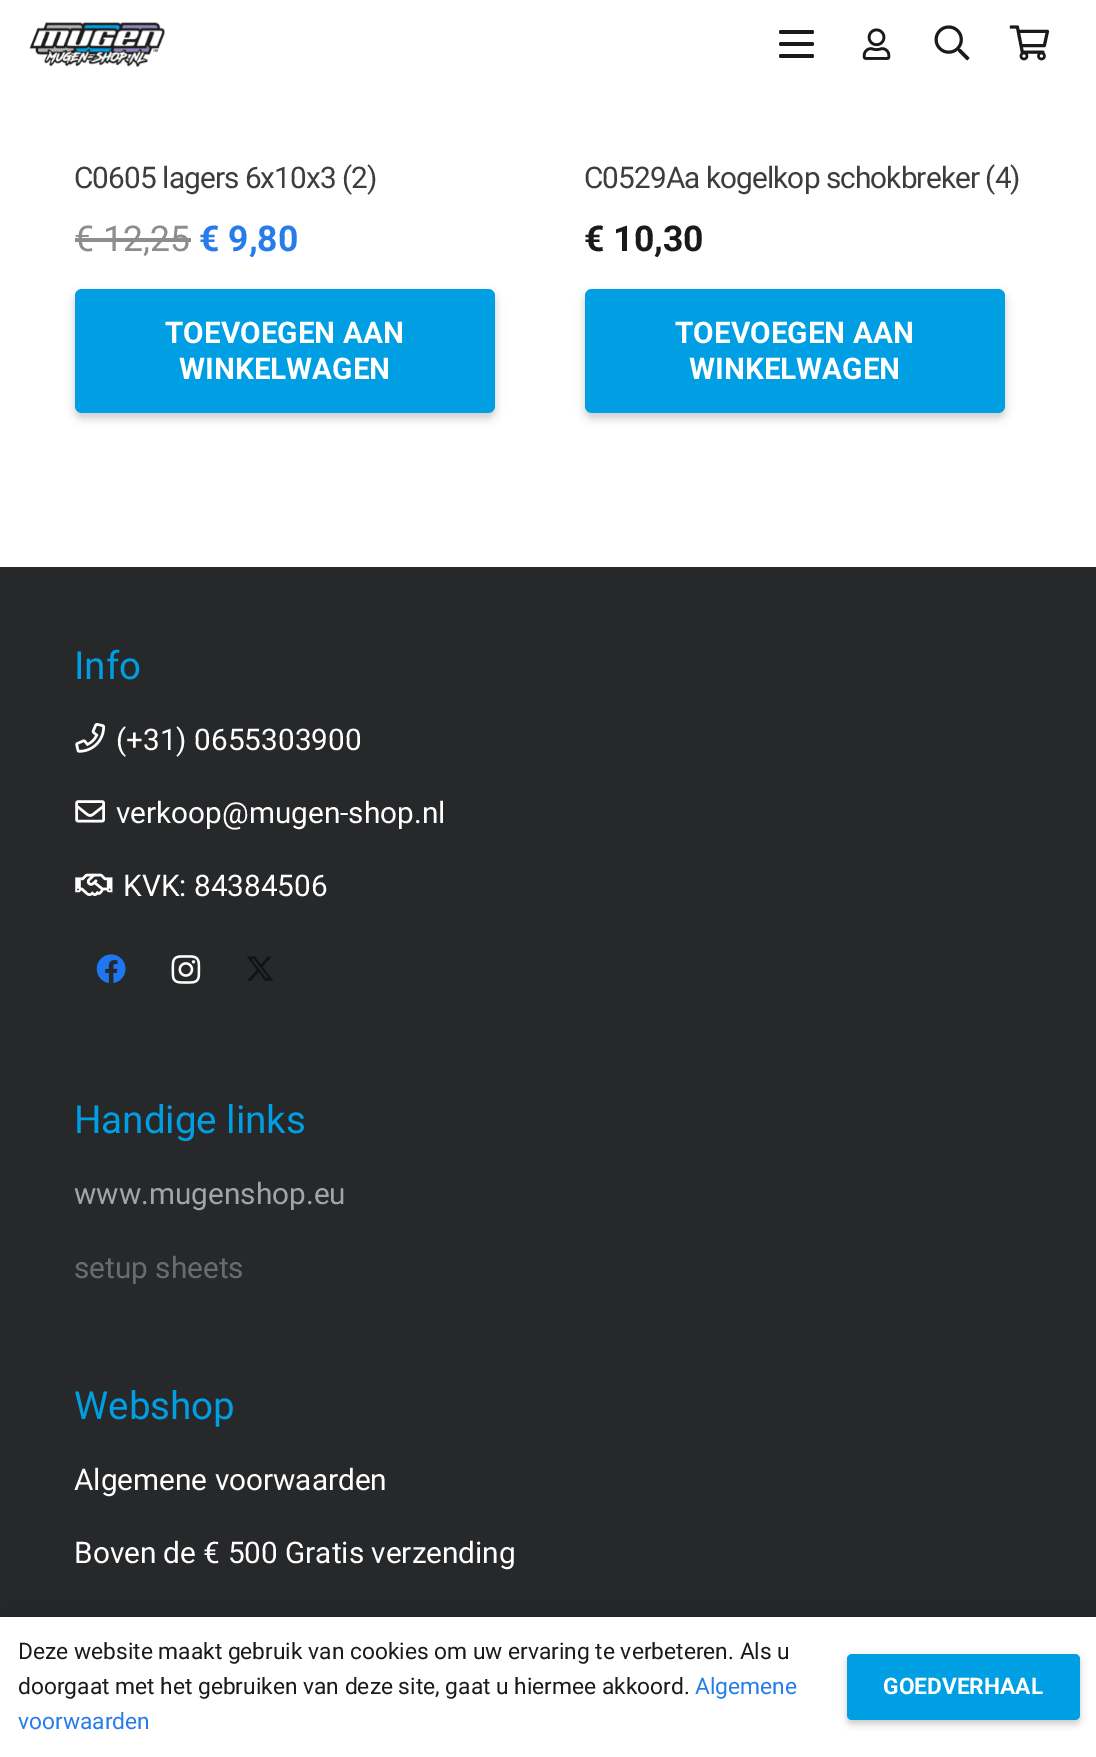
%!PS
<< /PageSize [1096 1757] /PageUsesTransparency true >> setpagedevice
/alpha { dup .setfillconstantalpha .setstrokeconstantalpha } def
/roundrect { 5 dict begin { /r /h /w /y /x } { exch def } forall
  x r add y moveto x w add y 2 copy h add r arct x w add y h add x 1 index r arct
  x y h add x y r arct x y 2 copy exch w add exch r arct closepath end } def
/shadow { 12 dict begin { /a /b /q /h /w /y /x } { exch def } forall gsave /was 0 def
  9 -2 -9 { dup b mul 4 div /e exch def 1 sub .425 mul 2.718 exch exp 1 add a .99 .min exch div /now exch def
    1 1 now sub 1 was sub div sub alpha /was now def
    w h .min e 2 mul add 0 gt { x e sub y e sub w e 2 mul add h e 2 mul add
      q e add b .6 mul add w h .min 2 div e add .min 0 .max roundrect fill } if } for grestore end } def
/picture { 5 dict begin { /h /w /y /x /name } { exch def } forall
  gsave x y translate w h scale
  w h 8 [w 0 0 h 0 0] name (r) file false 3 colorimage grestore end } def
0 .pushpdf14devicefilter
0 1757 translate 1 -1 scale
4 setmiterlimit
1 setgray
0 0 1096 1757 rectfill
(img1.rgb) 29 22 136 45 picture
0.102 setgray
779 42 35 4 2 roundrect fill
779 30 35 4 2 roundrect fill
779 54 35 4 2 roundrect fill
(img2.rgb) 862 28 29 32 picture
(img3.rgb) 934 25 36 36 picture
(img4.rgb) 1009 25 41 36 picture
/Roboto-Regular [29.75 0 0 -29.75 0 0] selectfont
0.231 0.239 0.251 setrgbcolor
74 188 moveto -0.9 0 (C0605 lagers 6x10x3 \(2\)) ashow
/Roboto-Regular [35.5 0 0 -35.5 0 0] selectfont
0.553 setgray
74 251 moveto (€ 12,25) show
75 238 116 4 rectfill
/Roboto-Bold [35.5 0 0 -35.5 0 0] selectfont
0.153 0.486 0.918 setrgbcolor
199 251 moveto (€ 9,80) show
0 setgray
75 294 420 124 7 4.5 0.2 shadow
0 0.624 0.89 setrgbcolor
75 289 420 124 7 roundrect fill
/Roboto-Bold [29.75 0 0 -29.75 0 0] selectfont
1 setgray
165 343 moveto (TOEVOEGEN AAN) show
179 379 moveto (WINKELWAGEN) show
/Roboto-Regular [29.75 0 0 -29.75 0 0] selectfont
0.231 0.239 0.251 setrgbcolor
584 188 moveto -0.9 0 (C0529Aa kogelkop schokbreker \(4\)) ashow
/Roboto-Bold [35.5 0 0 -35.5 0 0] selectfont
0.102 setgray
584 251 moveto (€ 10,30) show
0 setgray
585 294 420 124 7 4.5 0.2 shadow
0 0.624 0.89 setrgbcolor
585 289 420 124 7 roundrect fill
/Roboto-Bold [29.75 0 0 -29.75 0 0] selectfont
1 setgray
675 343 moveto (TOEVOEGEN AAN) show
689 379 moveto (WINKELWAGEN) show
0.153 0.157 0.165 setrgbcolor
0 567 1096 1050 rectfill
/Roboto-Regular [38.5 0 0 -38.5 0 0] selectfont
0 0.624 0.89 setrgbcolor
74 679 moveto (Info) show
(img5.rgb) 75 723 31 30 picture
/Roboto-Regular [29.75 0 0 -29.75 0 0] selectfont
1 setgray
116 750 moveto (\(+31\) 0655303900) show
(img6.rgb) 75 800 30 23 picture
116 823 moveto (verkoop@mugen-shop.nl) show
(img7.rgb) 75 873 38 23 picture
123 896 moveto (KVK: 84384506) show
(img8.rgb) 96 954 30 29 picture
(img9.rgb) 171 955 30 29 picture
(img10.rgb) 247 956 26 25 picture
/Roboto-Regular [38.5 0 0 -38.5 0 0] selectfont
0 0.624 0.89 setrgbcolor
74 1133 moveto (Handige links) show
/Roboto-Regular [29.75 0 0 -29.75 0 0] selectfont
0.616 0.651 0.659 setrgbcolor
74 1204 moveto (www.mugenshop.eu) show
0.4 0.427 0.439 setrgbcolor
74 1278 moveto (setup sheets) show
/Roboto-Regular [38.5 0 0 -38.5 0 0] selectfont
0 0.624 0.89 setrgbcolor
74 1419 moveto (Webshop) show
/Roboto-Regular [29.75 0 0 -29.75 0 0] selectfont
1 setgray
74 1490 moveto (Algemene voorwaarden) show
74 1563 moveto (Boven de € 500 Gratis verzending) show
0 setgray
0 1608 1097 140 0 13 0.15 shadow
1 setgray
0 1617 1096 140 rectfill
/Roboto-Regular [22.75 0 0 -22.75 0 0] selectfont
0.102 setgray
18 1659 moveto (Deze website maakt gebruik van cookies om uw ervaring te verbeteren. Als u) show
18 1694 moveto (doorgaat met het gebruiken van deze site, gaat u hiermee akkoord.) show
0.153 0.486 0.918 setrgbcolor
695 1694 moveto (Algemene) show
18 1729 moveto (voorwaarden) show
0 setgray
847 1657 233 67 5 3.5 0.2 shadow
0 0.624 0.89 setrgbcolor
847 1654 233 66 5 roundrect fill
/Roboto-Bold [22.75 0 0 -22.75 0 0] selectfont
1 setgray
883 1694 moveto (GOEDVERHAAL) show
.poppdf14devicefilter showpage
